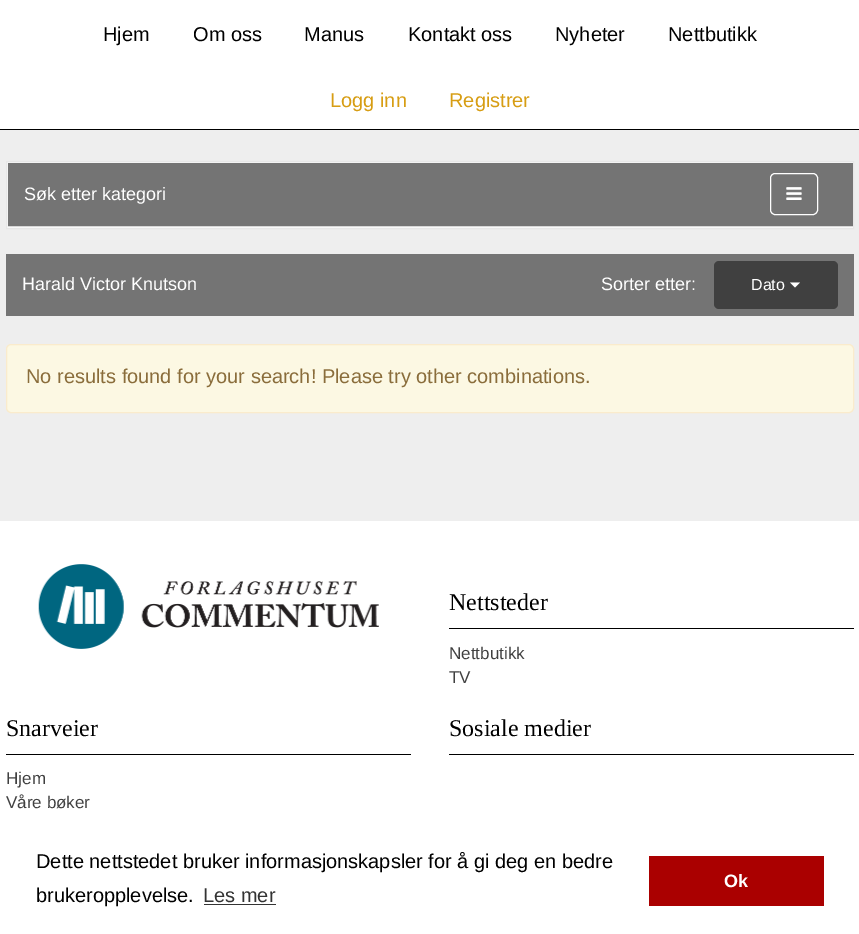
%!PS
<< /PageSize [859 934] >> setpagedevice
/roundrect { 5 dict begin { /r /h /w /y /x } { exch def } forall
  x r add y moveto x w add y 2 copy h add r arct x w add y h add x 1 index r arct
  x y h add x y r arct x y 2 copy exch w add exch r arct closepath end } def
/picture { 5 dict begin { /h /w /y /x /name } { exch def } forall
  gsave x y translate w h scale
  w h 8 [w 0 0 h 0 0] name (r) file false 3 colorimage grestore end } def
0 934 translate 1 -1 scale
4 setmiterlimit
0.933 setgray
0 0 859 934 rectfill
1 setgray
0 0 859 129 rectfill
0 setgray
0 129 859 1 rectfill
/LiberationSans-Regular [20 0 0 -20 0 0] selectfont
103 41 moveto (Hjem) show
193 41 moveto (Om oss) show
304 41 moveto (Manus) show
408 41 moveto (Kontakt oss) show
555 41 moveto (Nyheter) show
668 41 moveto (Nettbutikk) show
0.843 0.616 0.075 setrgbcolor
330 107 moveto (Logg inn) show
449 107 moveto (Registrer) show
0.973 setgray
newpath 6.5 161.5 moveto 853.5 161.5 lineto 853.5 228.5 lineto 6.5 228.5 lineto closepath gsave fill grestore
0.906 setgray
stroke
0.455 setgray
8 163 845 63 rectfill
/LiberationSans-Regular [18 0 0 -18 0 0] selectfont
1 setgray
24 200 moveto (Søk etter kategori) show
770.5 173.5 47 41 4.5 roundrect stroke
(img1.rgb) 786 187 16 13 picture
0.843 setgray
8 226 845 1 rectfill
0.455 setgray
6 254 848 62 rectfill
1 setgray
22 290 moveto (Harald Victor Knutson) show
601 290 moveto (Sorter etter:) show
0.251 setgray
714 261 124 48 5 roundrect fill
/LiberationSans-Regular [16 0 0 -16 0 0] selectfont
1 setgray
751 290 moveto (Dato) show
newpath 790 282.5 moveto 800 282.5 lineto 795 287.5 lineto closepath fill
0.988 0.973 0.89 setrgbcolor
6.5 344.5 847 68 4.5 roundrect gsave fill grestore
0.98 0.922 0.8 setrgbcolor
stroke
/LiberationSans-Regular [20 0 0 -20 0 0] selectfont
0.541 0.427 0.231 setrgbcolor
26 383 moveto (No results found for your search! Please try other combinations.) show
1 setgray
0 521 859 413 rectfill
(img2.rgb) 38 564 341 85 picture
0 setgray
449 628 405 1 rectfill
/LiberationSerif-Regular [24 0 0 -24 0 0] selectfont
449 610 moveto (Nettsteder) show
/LiberationSans-Regular [17 0 0 -17 0 0] selectfont
0.251 setgray
449 659 moveto (Nettbutikk) show
449 683 moveto (TV) show
0 setgray
6 754 405 1 rectfill
/LiberationSerif-Regular [24 0 0 -24 0 0] selectfont
6 736 moveto (Snarveier) show
/LiberationSans-Regular [17 0 0 -17 0 0] selectfont
0.251 setgray
6 784 moveto (Hjem) show
6 808 moveto (Våre bøker) show
0 setgray
449 754 405 1 rectfill
/LiberationSerif-Regular [24 0 0 -24 0 0] selectfont
449 736 moveto (Sosiale medier) show
/LiberationSans-Regular [20 0 0 -20 0 0] selectfont
36 868 moveto (Dette nettstedet bruker informasjonskapsler for å gi deg en bedre) show
36 902 moveto (brukeropplevelse.) show
0.2 setgray
203 902 moveto (Les mer) show
204 904 72 1 rectfill
0.667 0 0 setrgbcolor
649 856 175 50 rectfill
/LiberationSans-Bold [18 0 0 -18 0 0] selectfont
1 setgray
724 887 moveto (Ok) show
showpage
